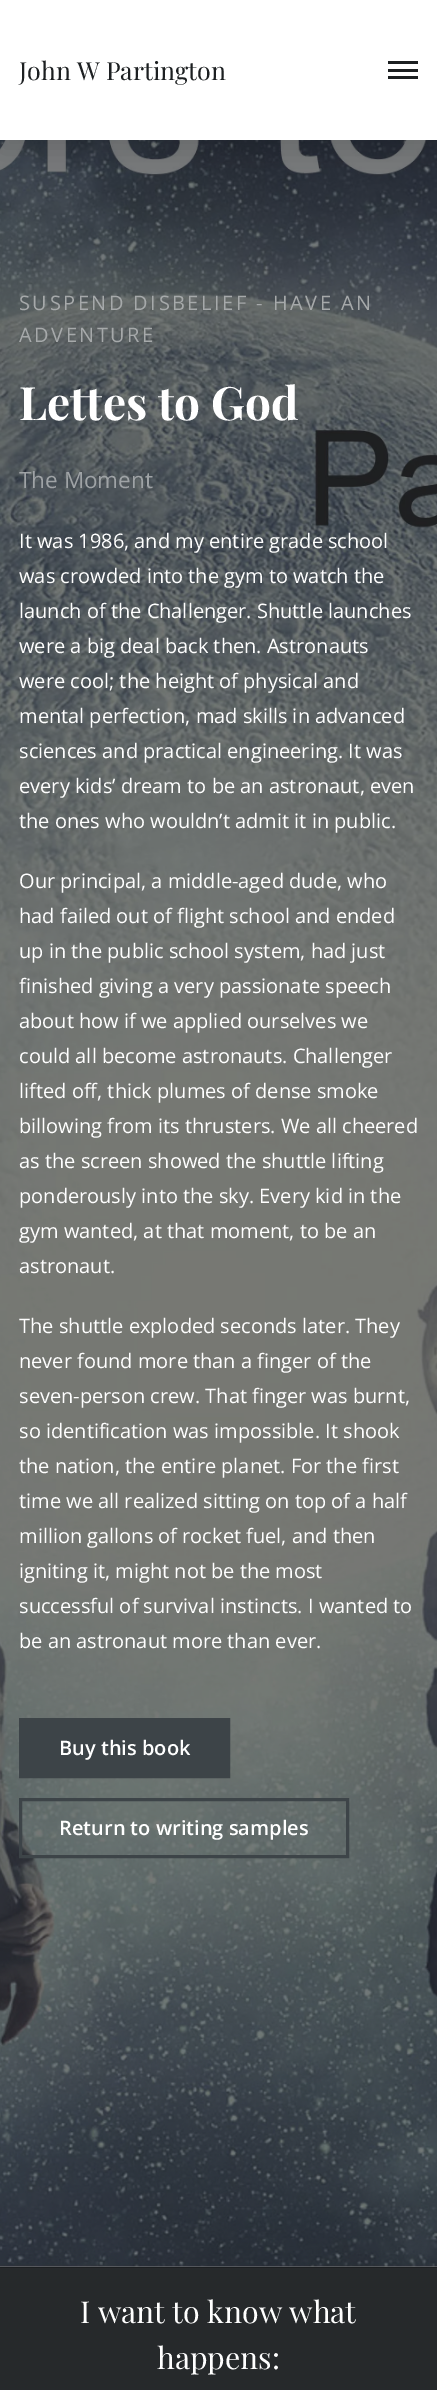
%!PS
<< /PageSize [437 2390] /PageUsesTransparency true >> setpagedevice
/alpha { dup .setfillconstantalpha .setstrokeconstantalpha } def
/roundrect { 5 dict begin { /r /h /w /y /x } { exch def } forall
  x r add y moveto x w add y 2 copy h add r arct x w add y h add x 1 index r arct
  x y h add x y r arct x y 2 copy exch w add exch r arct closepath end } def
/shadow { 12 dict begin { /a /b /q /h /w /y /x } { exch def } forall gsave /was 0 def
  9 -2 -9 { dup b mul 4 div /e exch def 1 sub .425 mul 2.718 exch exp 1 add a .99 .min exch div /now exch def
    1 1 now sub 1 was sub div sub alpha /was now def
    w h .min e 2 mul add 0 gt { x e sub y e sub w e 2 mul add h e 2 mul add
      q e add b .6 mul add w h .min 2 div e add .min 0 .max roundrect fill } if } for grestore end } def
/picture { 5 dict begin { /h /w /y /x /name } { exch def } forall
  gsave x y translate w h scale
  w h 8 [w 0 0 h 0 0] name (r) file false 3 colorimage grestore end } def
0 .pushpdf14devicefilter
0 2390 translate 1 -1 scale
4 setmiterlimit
0.11 0.122 0.129 setrgbcolor
0 0 437 2390 rectfill
(img1.rgb) 0 140 437 2127 picture
0 setgray
0 13 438 140 0 12.5 0.12 shadow
1 setgray
0 0 437 140 rectfill
/PlayfairDisplay-Regular [25 0 0 -25 0 0] selectfont
0.11 0.122 0.129 setrgbcolor
19 80 moveto (John W Partington) show
388 69 30 3 rectfill
388 61 30 3 rectfill
388 76 30 3 rectfill
/OpenSans-Regular [20 0 0 -20 0 0] selectfont
0.651 0.663 0.667 setrgbcolor
19 310 moveto 2.5 0 (SUSPEND DISBELIEF - HAVE AN) ashow
19 342 moveto 2.5 0 (ADVENTURE) ashow
/PlayfairDisplay-Bold [46 0 0 -46 0 0] selectfont
1 setgray
19 420 moveto (Lettes to God) show
/OpenSans-Regular [22.5 0 0 -22.5 0 0] selectfont
0.624 0.639 0.651 setrgbcolor
19 488 moveto (The Moment) show
/OpenSans-Regular [20 0 0 -20 0 0] selectfont
1 setgray
19 548 moveto (It was 1986, and my entire grade school) show
19 583 moveto (was crowded into the gym to watch the) show
19 618 moveto (launch of the Challenger. Shuttle launches) show
19 653 moveto (were a big deal back then. Astronauts) show
19 688 moveto (were cool; the height of physical and) show
19 723 moveto (mental perfection, mad skills in advanced) show
19 758 moveto (sciences and practical engineering. It was) show
19 793 moveto (every kids’ dream to be an astronaut, even) show
19 828 moveto (the ones who wouldn’t admit it in public.) show
19 888 moveto (Our principal, a middle-aged dude, who) show
19 923 moveto (had failed out of flight school and ended) show
19 958 moveto (up in the public school system, had just) show
19 993 moveto (finished giving a very passionate speech) show
19 1028 moveto (about how if we applied ourselves we) show
19 1063 moveto (could all become astronauts. Challenger) show
19 1098 moveto (lifted off, thick plumes of dense smoke) show
19 1133 moveto (billowing from its thrusters. We all cheered) show
19 1168 moveto (as the screen showed the shuttle lifting) show
19 1203 moveto (ponderously into the sky. Every kid in the) show
19 1238 moveto (gym wanted, at that moment, to be an) show
19 1273 moveto (astronaut.) show
19 1333 moveto (The shuttle exploded seconds later. They) show
19 1368 moveto (never found more than a finger of the) show
19 1403 moveto (seven-person crew. That finger was burnt,) show
19 1438 moveto (so identification was impossible. It shook) show
19 1473 moveto (the nation, the entire planet. For the first) show
19 1508 moveto (time we all realized sitting on top of a half) show
19 1543 moveto (million gallons of rocket fuel, and then) show
19 1578 moveto (igniting it, might not be the most) show
19 1613 moveto (successful of survival instincts. I wanted to) show
19 1648 moveto (be an astronaut more than ever.) show
0.239 0.267 0.282 setrgbcolor
newpath 20.5 1719.5 moveto 228.5 1719.5 lineto 228.5 1776.5 lineto 20.5 1776.5 lineto closepath gsave fill grestore
3 setlinewidth
stroke
/OpenSans-SemiBold [20 0 0 -20 0 0] selectfont
1 setgray
59 1755 moveto (Buy this book) show
0.239 0.267 0.282 setrgbcolor
20.5 1799.5 327 57 rectstroke
1 setgray
59 1835 moveto (Return to writing samples) show
0.149 0.161 0.169 setrgbcolor
0 2268 437 122 rectfill
/PlayfairDisplay-Regular [30.25 0 0 -30.25 0 0] selectfont
1 setgray
80 2323 moveto (I want to know what) show
157 2369 moveto (happens:) show
.poppdf14devicefilter showpage
